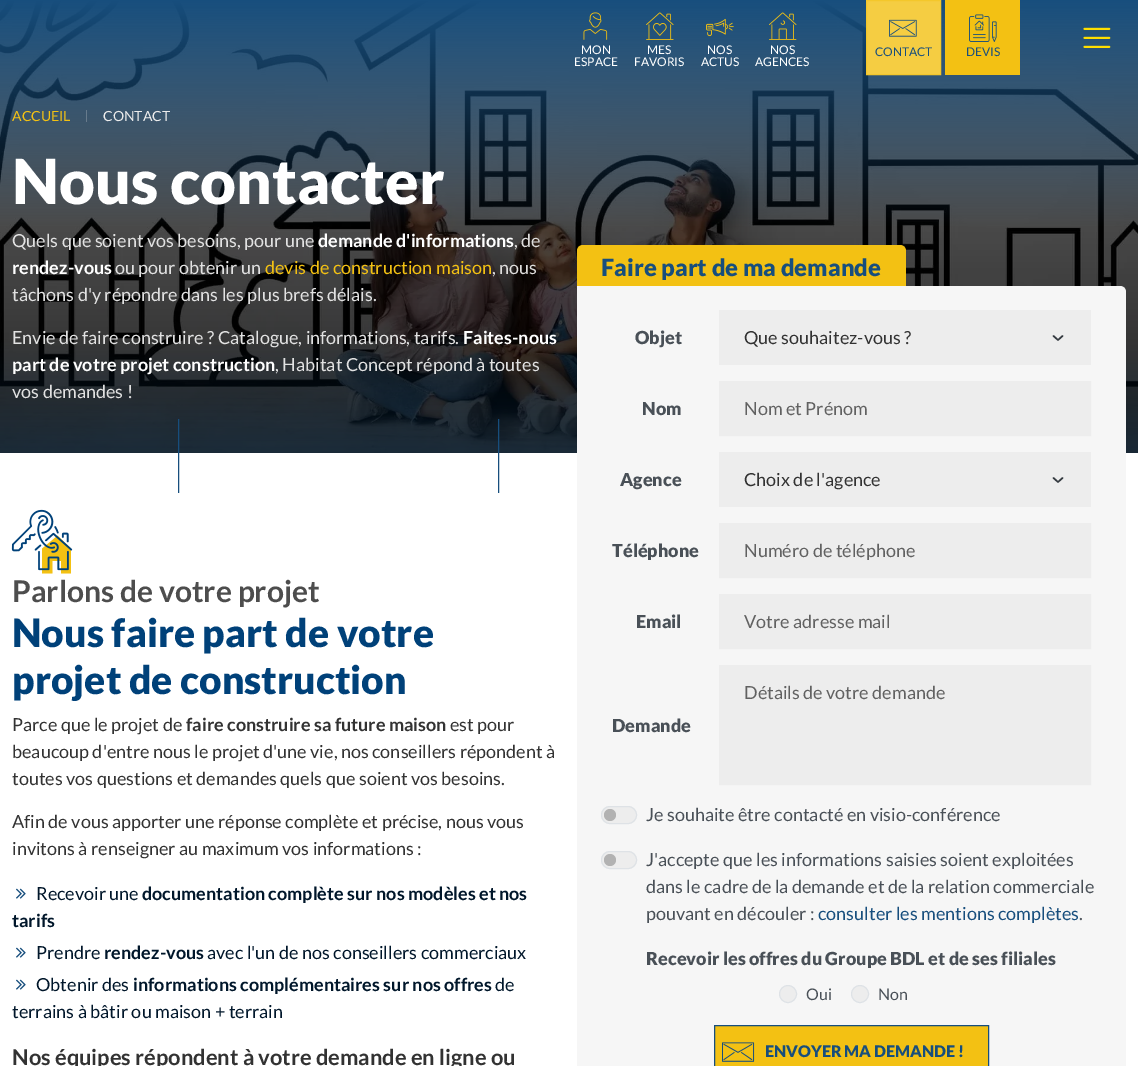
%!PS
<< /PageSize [1138 1066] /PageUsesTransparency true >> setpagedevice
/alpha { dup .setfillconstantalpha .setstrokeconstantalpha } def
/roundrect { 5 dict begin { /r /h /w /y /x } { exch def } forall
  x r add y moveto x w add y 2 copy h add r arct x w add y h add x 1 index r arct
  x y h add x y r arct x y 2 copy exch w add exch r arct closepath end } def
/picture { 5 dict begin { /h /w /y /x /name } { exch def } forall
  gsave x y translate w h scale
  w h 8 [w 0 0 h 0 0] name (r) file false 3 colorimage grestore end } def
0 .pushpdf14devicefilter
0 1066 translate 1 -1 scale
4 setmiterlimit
1 setgray
0 0 1138 1066 rectfill
(img8.rgb) 0 0 1138 453 picture
(img1.rgb) 1083 27 28 21 picture
(img2.rgb) 583 12 25 28 picture
/Lato-Regular [12 0 0 -12 0 0] selectfont
581 54 moveto (MON) show
574 66 moveto (ESPACE) show
(img3.rgb) 646 12 28 28 picture
647 54 moveto (MES) show
634 66 moveto (FAVORIS) show
(img4.rgb) 706 18 28 19 picture
707 54 moveto (NOS) show
701 66 moveto (ACTUS) show
(img5.rgb) 769 12 28 28 picture
770 54 moveto (NOS) show
755 66 moveto (AGENCES) show
0.961 0.804 0.259 setrgbcolor
newpath 866.5 0.5 moveto 940.5 0.5 lineto 940.5 74.5 lineto 866.5 74.5 lineto closepath gsave fill grestore
0.957 0.78 0.169 setrgbcolor
stroke
(img6.rgb) 889 19 28 18 picture
0.09 0.306 0.49 setrgbcolor
875 56 moveto (CONTACT) show
0.953 0.757 0.075 setrgbcolor
945 0 75 75 rectfill
(img7.rgb) 969 14 28 28 picture
0.09 0.306 0.49 setrgbcolor
966 56 moveto (DEVIS) show
/Lato-Regular [14 0 0 -14 0 0] selectfont
0.953 0.757 0.075 setrgbcolor
12 121 moveto (ACCUEIL) show
0.25 alpha
0.929 setgray
86 110 1 12 rectfill
1 alpha
0.925 setgray
103 121 moveto (CONTACT) show
/Lato-Black [62 0 0 -62 0 0] selectfont
1 setgray
12 204 moveto (Nous contacter) show
/Lato-Regular [18 0 0 -18 0 0] selectfont
0.886 setgray
12 247 moveto (Quels que soient vos besoins, pour une) show
/Lato-Bold [18 0 0 -18 0 0] selectfont
1 setgray
318 247 moveto (demande d'informations) show
/Lato-Regular [18 0 0 -18 0 0] selectfont
0.871 0.867 0.863 setrgbcolor
514 247 moveto (, de) show
/Lato-Bold [18 0 0 -18 0 0] selectfont
1 setgray
12 274 moveto (rendez-vous) show
/Lato-Regular [18 0 0 -18 0 0] selectfont
0.886 setgray
115 274 moveto (ou pour obtenir un) show
0.953 0.757 0.075 setrgbcolor
265 274 moveto (devis de construction maison) show
0.871 0.867 0.863 setrgbcolor
492 274 moveto (, nous) show
0.886 setgray
12 301 moveto (tâchons d'y répondre dans les plus brefs délais.) show
12 344 moveto (Envie de faire construire ? Catalogue, informations, tarifs.) show
/Lato-Bold [18 0 0 -18 0 0] selectfont
1 setgray
463 344 moveto (Faites-nous) show
12 371 moveto (part de votre projet construction) show
/Lato-Regular [18 0 0 -18 0 0] selectfont
0.886 setgray
275 371 moveto (, Habitat Concept répond à toutes) show
12 398 moveto (vos demandes !) show
gsave
0 419 1138 34 rectclip
0.09 0.306 0.49 setrgbcolor
newpath -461.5 419 moveto -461.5 501 lineto -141.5 419 moveto -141.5 501 lineto 178.5 419 moveto 178.5 501 lineto 498.5 419 moveto 498.5 501 lineto 818.5 419 moveto 818.5 501 lineto stroke
grestore
0.953 0.757 0.075 setrgbcolor
newpath 71 573.5 moveto 61 573.5 lineto 61 561 lineto 52.5 561 lineto 52.5 573.5 lineto 42 573.5 lineto 42 548.5 lineto 57.5 535.5 lineto 71 548.5 lineto closepath fill
(img9.rgb) 11 509 62 62 picture
/Lato-Bold [30 0 0 -30 0 0] selectfont
0.302 setgray
12 602 moveto (Parlons de votre projet) show
/Lato-Black [39 0 0 -39 0 0] selectfont
0 0.255 0.475 setrgbcolor
12 647 moveto (Nous faire part de votre) show
12 694 moveto (projet de construction) show
/Lato-Regular [18 0 0 -18 0 0] selectfont
0.196 setgray
12 731 moveto (Parce que le projet de) show
/Lato-Bold [18 0 0 -18 0 0] selectfont
186 731 moveto (faire construire sa future maison) show
/Lato-Regular [18 0 0 -18 0 0] selectfont
450 731 moveto (est pour) show
12 758 moveto (beaucoup d'entre nous le projet d'une vie, nos conseillers répondent à) show
12 785 moveto (toutes vos questions et demandes quels que soient vos besoins.) show
12 828 moveto (Afin de vous apporter une réponse complète et précise, nous vous) show
12 855 moveto (invitons à renseigner au maximum vos informations :) show
(img10.rgb) 16 888 10 11 picture
0 0.086 0.165 setrgbcolor
36 900 moveto (Recevoir une) show
/Lato-Bold [18 0 0 -18 0 0] selectfont
142 900 moveto (documentation complète sur nos modèles et nos) show
12 927 moveto (tarifs) show
(img10.rgb) 16 947 10 11 picture
/Lato-Regular [18 0 0 -18 0 0] selectfont
36 959 moveto (Prendre) show
/Lato-Bold [18 0 0 -18 0 0] selectfont
104 959 moveto (rendez-vous) show
/Lato-Regular [18 0 0 -18 0 0] selectfont
207 959 moveto (avec l'un de nos conseillers commerciaux) show
(img10.rgb) 16 979 10 11 picture
36 991 moveto (Obtenir des) show
/Lato-Bold [18 0 0 -18 0 0] selectfont
133 991 moveto (informations complémentaires sur nos offres) show
/Lato-Regular [18 0 0 -18 0 0] selectfont
495 991 moveto (de) show
12 1018 moveto (terrains à bâtir ou maison + terrain) show
/Lato-Bold [21.9 0 0 -21.9 0 0] selectfont
0.196 setgray
12 1065 moveto (Nos équipes répondent à votre demande en ligne ou) show
0.953 0.757 0.075 setrgbcolor
newpath 583 245 moveto 900 245 lineto 903.5 245 906 247.5 906 251 curveto 906 298 lineto 577 298 lineto 577 251 lineto 577 247.5 579.5 245 583 245 curveto closepath fill
/Lato-Black [23.75 0 0 -23.75 0 0] selectfont
0.09 0.306 0.49 setrgbcolor
601 276 moveto (Faire part de ma demande) show
gsave
0 453 1138 40 rectclip
newpath -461.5 453 moveto -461.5 535 lineto -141.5 453 moveto -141.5 535 lineto 178.5 453 moveto 178.5 535 lineto 498.5 453 moveto 498.5 535 lineto 818.5 453 moveto 818.5 535 lineto stroke
grestore
0.965 setgray
newpath 577 286 moveto 1120 286 lineto 1123.5 286 1126 288.5 1126 292 curveto 1126 1066 lineto 1126 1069.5 1123.5 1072 1120 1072 curveto 583 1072 lineto 579.5 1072 577 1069.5 577 1066 curveto closepath fill
/Lato-Black [18 0 0 -18 0 0] selectfont
0.286 0.314 0.341 setrgbcolor
635 344 moveto (Objet) show
0.929 setgray
719 310 372 55 rectfill
0.204 0.227 0.251 setrgbcolor
1.5 setlinewidth
1 setlinecap
1 setlinejoin
newpath 1053.5 336 moveto 1058 340 lineto 1062.5 336 lineto stroke
/Lato-Regular [18 0 0 -18 0 0] selectfont
0.196 setgray
744 344 moveto (Que souhaitez-vous ?) show
/Lato-Black [18 0 0 -18 0 0] selectfont
0.286 0.314 0.341 setrgbcolor
642 415 moveto (Nom) show
0.929 setgray
newpath 719.5 381.5 moveto 1090.5 381.5 lineto 1090.5 435.5 lineto 719.5 435.5 lineto closepath gsave fill grestore
1 setlinewidth
0 setlinecap
0 setlinejoin
stroke
/Lato-Regular [18 0 0 -18 0 0] selectfont
0.38 setgray
744 415 moveto (Nom et Prénom) show
/Lato-Black [18 0 0 -18 0 0] selectfont
0.286 0.314 0.341 setrgbcolor
620 486 moveto (Agence) show
0.929 setgray
719 452 372 55 rectfill
0.204 0.227 0.251 setrgbcolor
1.5 setlinewidth
1 setlinecap
1 setlinejoin
newpath 1053.5 478 moveto 1058 482 lineto 1062.5 478 lineto stroke
/Lato-Regular [18 0 0 -18 0 0] selectfont
0.196 setgray
744 486 moveto (Choix de l'agence) show
/Lato-Black [18 0 0 -18 0 0] selectfont
0.286 0.314 0.341 setrgbcolor
612 557 moveto (Téléphone) show
0.929 setgray
newpath 719.5 523.5 moveto 1090.5 523.5 lineto 1090.5 577.5 lineto 719.5 577.5 lineto closepath gsave fill grestore
1 setlinewidth
0 setlinecap
0 setlinejoin
stroke
/Lato-Regular [18 0 0 -18 0 0] selectfont
0.38 setgray
744 557 moveto (Numéro de téléphone) show
/Lato-Black [18 0 0 -18 0 0] selectfont
0.286 0.314 0.341 setrgbcolor
636 628 moveto (Email) show
0.929 setgray
newpath 719.5 594.5 moveto 1090.5 594.5 lineto 1090.5 648.5 lineto 719.5 648.5 lineto closepath gsave fill grestore
stroke
/Lato-Regular [18 0 0 -18 0 0] selectfont
0.38 setgray
744 628 moveto (Votre adresse mail) show
0.929 setgray
newpath 719.5 665.5 moveto 1090.5 665.5 lineto 1090.5 784.5 lineto 719.5 784.5 lineto closepath gsave fill grestore
stroke
0.38 setgray
744 699 moveto (Détails de votre demande) show
/Lato-Black [18 0 0 -18 0 0] selectfont
0.286 0.314 0.341 setrgbcolor
612 732 moveto (Demande) show
0.929 setgray
601 806 36 18 9 roundrect fill
0.698 setgray
newpath 610 815 6 0 360 arc closepath fill
0.871 0.886 0.902 setrgbcolor
601.5 806.5 35 17 8.5 roundrect stroke
/Lato-Regular [18 0 0 -18 0 0] selectfont
0.286 0.314 0.341 setrgbcolor
646 821 moveto (Je souhaite être contacté en visio-conférence) show
0.929 setgray
601 851 36 18 9 roundrect fill
0.698 setgray
newpath 610 860 6 0 360 arc closepath fill
0.871 0.886 0.902 setrgbcolor
601.5 851.5 35 17 8.5 roundrect stroke
0.286 0.314 0.341 setrgbcolor
646 866 moveto (J'accepte que les informations saisies soient exploitées) show
646 893 moveto (dans le cadre de la demande et de la relation commerciale) show
646 920 moveto (pouvant en découler :) show
0.09 0.306 0.49 setrgbcolor
818 920 moveto (consulter les mentions complètes) show
0.286 0.314 0.341 setrgbcolor
1079 920 moveto (.) show
/Lato-Black [18 0 0 -18 0 0] selectfont
646 965 moveto (Recevoir les offres du Groupe BDL et de ses filiales) show
0.929 setgray
newpath 788 994 8.5 0 360 arc closepath gsave fill grestore
0.871 0.886 0.902 setrgbcolor
stroke
/Lato-Regular [16 0 0 -16 0 0] selectfont
0.286 0.314 0.341 setrgbcolor
806 1000 moveto (Oui) show
0.929 setgray
newpath 860 994 8.5 0 360 arc closepath gsave fill grestore
0.871 0.886 0.902 setrgbcolor
stroke
0.286 0.314 0.341 setrgbcolor
878 1000 moveto (Non) show
0.953 0.757 0.075 setrgbcolor
newpath 714.5 1025.5 moveto 988.5 1025.5 lineto 988.5 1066.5 lineto 714.5 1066.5 lineto closepath gsave fill grestore
0.09 0.306 0.49 setrgbcolor
stroke
(img11.rgb) 722 1042 33 20 picture
/Lato-Black [16 0 0 -16 0 0] selectfont
765 1057 moveto (ENVOYER MA DEMANDE !) show
.poppdf14devicefilter showpage
